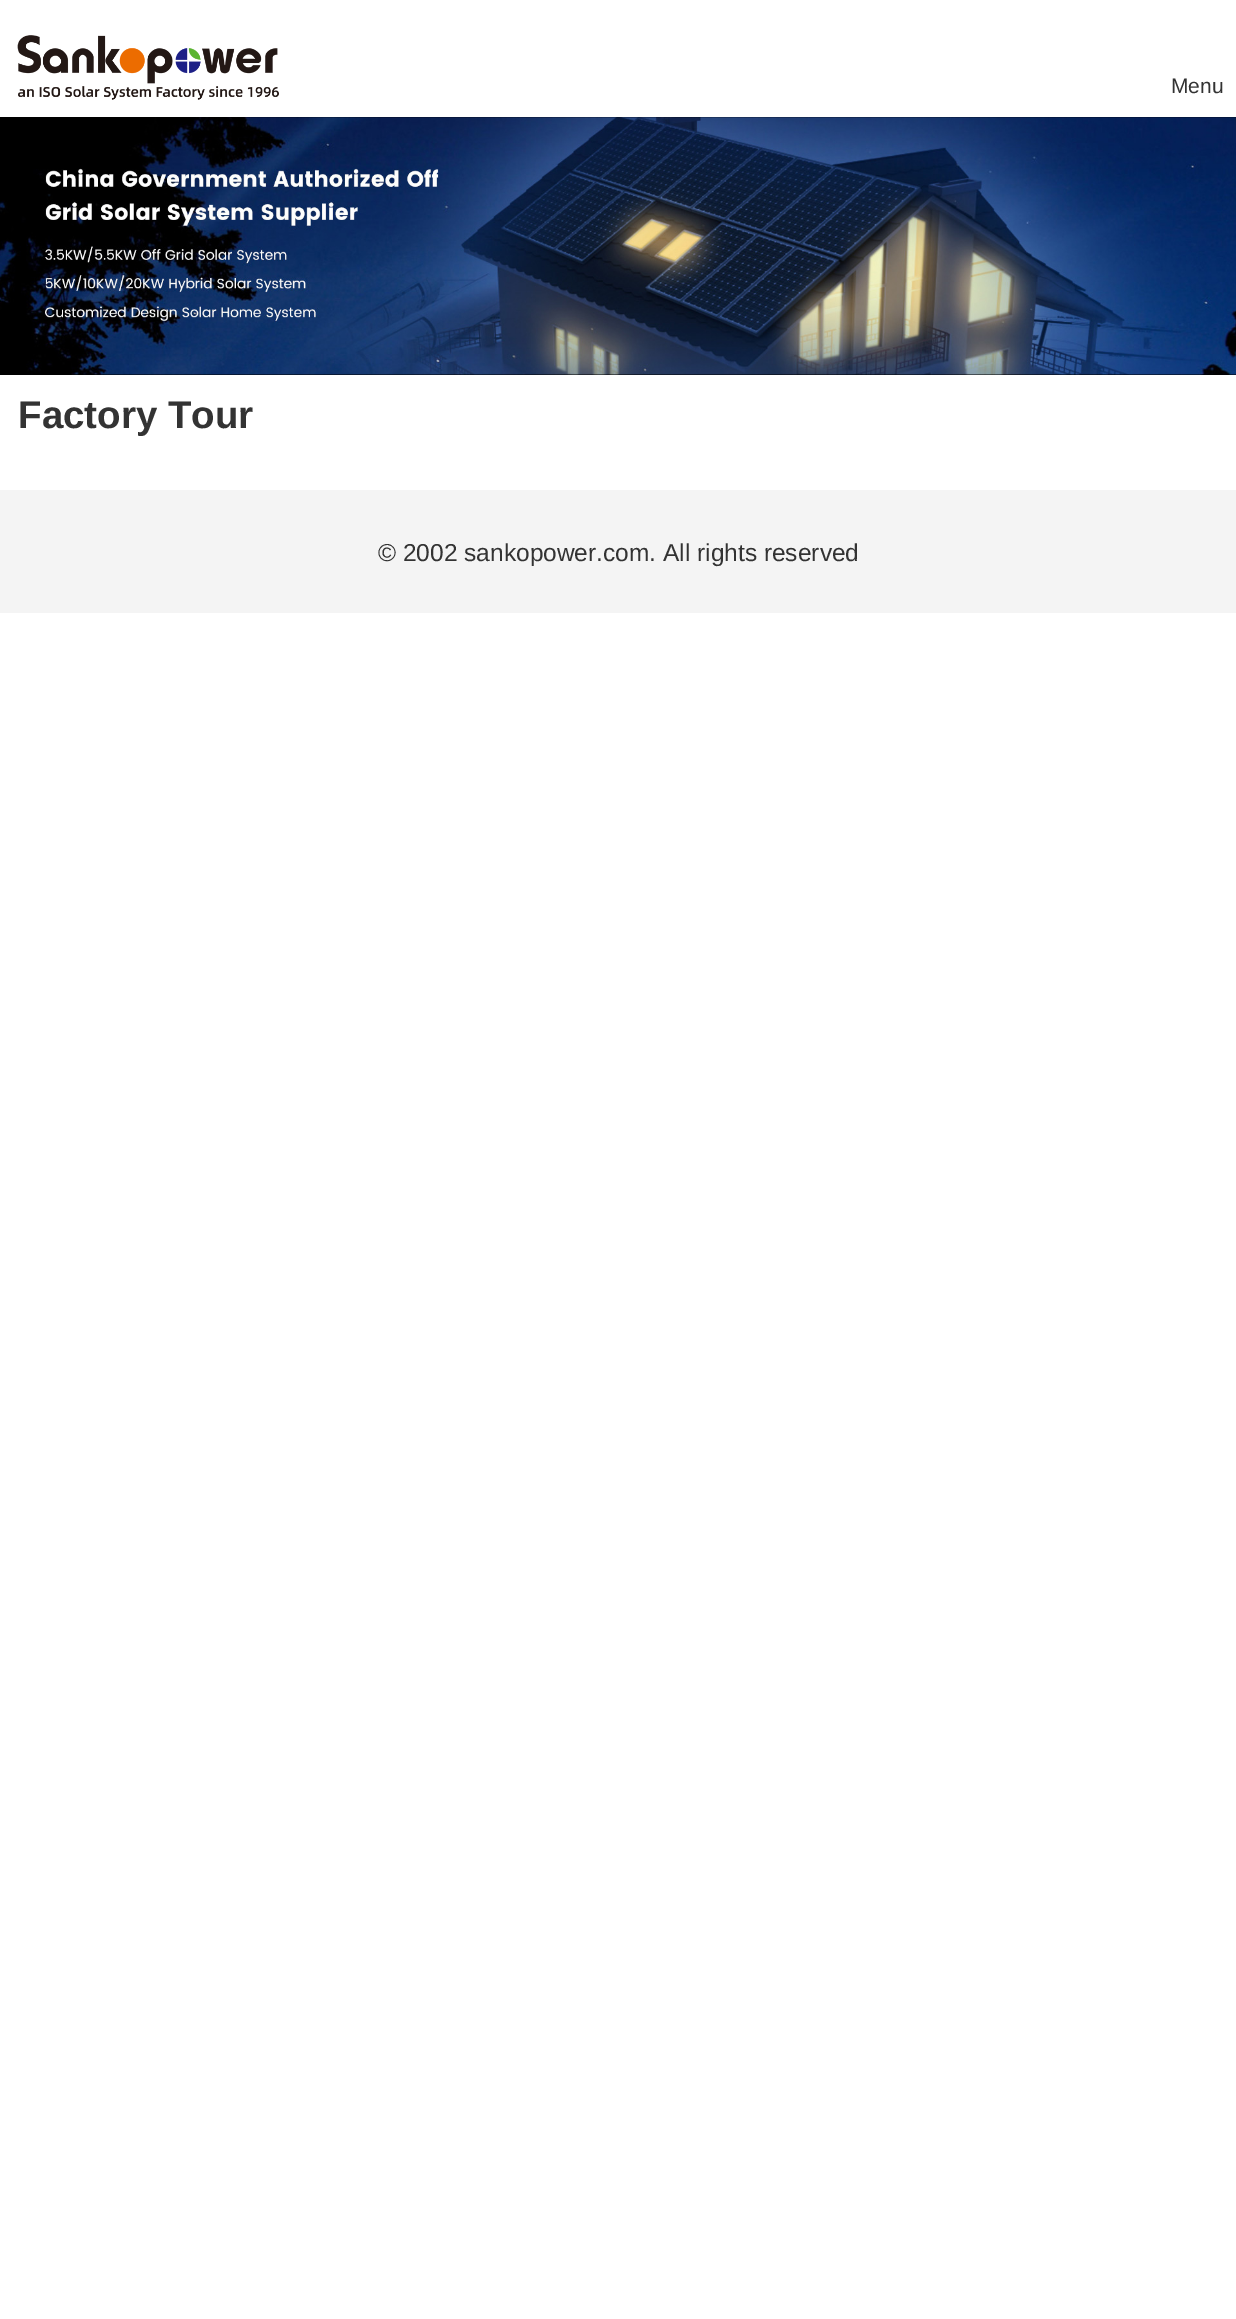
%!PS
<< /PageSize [1236 2319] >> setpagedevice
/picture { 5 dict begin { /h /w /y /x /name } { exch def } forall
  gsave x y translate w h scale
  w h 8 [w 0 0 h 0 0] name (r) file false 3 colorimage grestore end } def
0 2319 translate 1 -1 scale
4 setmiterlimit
1 setgray
0 0 1236 2319 rectfill
(img1.rgb) 17 35 262 65 picture
/LiberationSans-Regular [21 0 0 -21 0 0] selectfont
0.2 setgray
1171 93 moveto (Menu) show
0 setgray
0 117 1236 258 rectfill
(img2.rgb) 0 117 1236 258 picture
/LiberationSans-Bold [38.5 0 0 -38.5 0 0] selectfont
0.2 setgray
18 428 moveto (Factory Tour) show
0.957 setgray
0 490 1236 123 rectfill
/LiberationSans-Regular [24.5 0 0 -24.5 0 0] selectfont
0.2 setgray
378 561 moveto (© 2002 sankopower.com. All rights reserved) show
showpage
